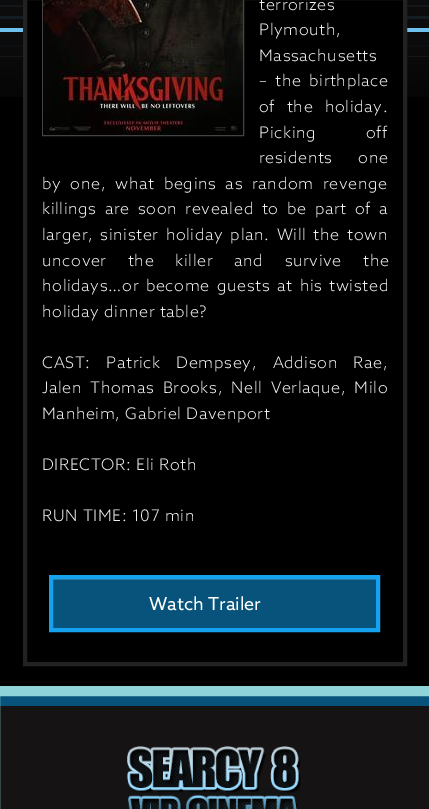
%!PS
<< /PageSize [429 809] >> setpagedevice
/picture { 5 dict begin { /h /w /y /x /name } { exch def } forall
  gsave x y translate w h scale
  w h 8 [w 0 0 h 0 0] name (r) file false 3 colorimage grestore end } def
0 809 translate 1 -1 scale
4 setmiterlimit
0 setgray
0 0 429 809 rectfill
(img1.rgb) 0 0 429 97 picture
27 0 376 97 rectfill
0.133 setgray
4 setlinewidth
25 -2 380 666 rectstroke
0.267 setgray
1 setlinewidth
42.5 -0.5 201 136 rectstroke
(img2.rgb) 43 0 200 135 picture
/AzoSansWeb-Light [16 0 0 -16 0 0] selectfont
0.933 setgray
259 10 moveto 0.65 0 (terrorizes) ashow
259 35 moveto 0.65 0 (Plymouth,) ashow
259 61 moveto 0.65 0 (Massachusetts) ashow
259 86 moveto 3 0 32 0.65 0 (– the birthplace) awidthshow
259 112 moveto 7 0 32 0.65 0 (of the holiday.) awidthshow
259 138 moveto 45 0 32 0.65 0 (Picking off) awidthshow
259 163 moveto 21 0 32 0.65 0 (residents one) awidthshow
42 189 moveto 4.5 0 32 0.65 0 (by one, what begins as random revenge) awidthshow
42 214 moveto 3.5 0 32 0.65 0 (killings are soon revealed to be part of a) awidthshow
42 240 moveto 2.5 0 32 0.65 0 (larger, sinister holiday plan. Will the town) awidthshow
42 266 moveto 16.5 0 32 0.65 0 (uncover the killer and survive the) awidthshow
42 291 moveto 2.25 0 32 0.65 0 (holidays…or become guests at his twisted) awidthshow
42 317 moveto 0.65 0 (holiday dinner table?) ashow
42 368 moveto 11 0 32 0.65 0 (CAST: Patrick Dempsey, Addison Rae,) awidthshow
42 393 moveto 3.5 0 32 0.65 0 (Jalen Thomas Brooks, Nell Verlaque, Milo) awidthshow
42 419 moveto 0.65 0 (Manheim, Gabriel Davenport) ashow
42 470 moveto 0.65 0 (DIRECTOR: Eli Roth) ashow
42 521 moveto 0.65 0 (RUN TIME: 107 min) ashow
0.031 0.325 0.482 setrgbcolor
53 580 323 48 rectfill
0.176 0.427 0.561 setrgbcolor
53 579 323 1 rectfill
0.082 0.631 0.933 setrgbcolor
4 setlinewidth
51 577 327 53 rectstroke
/AzoSansWeb-Regular [18 0 0 -18 0 0] selectfont
1 setgray
149 610 moveto (Watch Trailer) show
gsave newpath 0 706 moveto 429 706 lineto 429 809 lineto 0 809 lineto closepath clip newpath
<< /ShadingType 2 /ColorSpace /DeviceRGB /Coords [214 706 215 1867] /Extend [true true] /Function << /FunctionType 2 /Domain [0 1] /C0 [0.082 0.075 0.075] /C1 [0.055 0.051 0.051] /N 1 >> >> shfill grestore
0.031 0.325 0.482 setrgbcolor
0 696 429 10 rectfill
0.561 0.831 0.851 setrgbcolor
10 setlinewidth
-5 691 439 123 rectstroke
(img3.rgb) 127 746 174 63 picture
showpage
